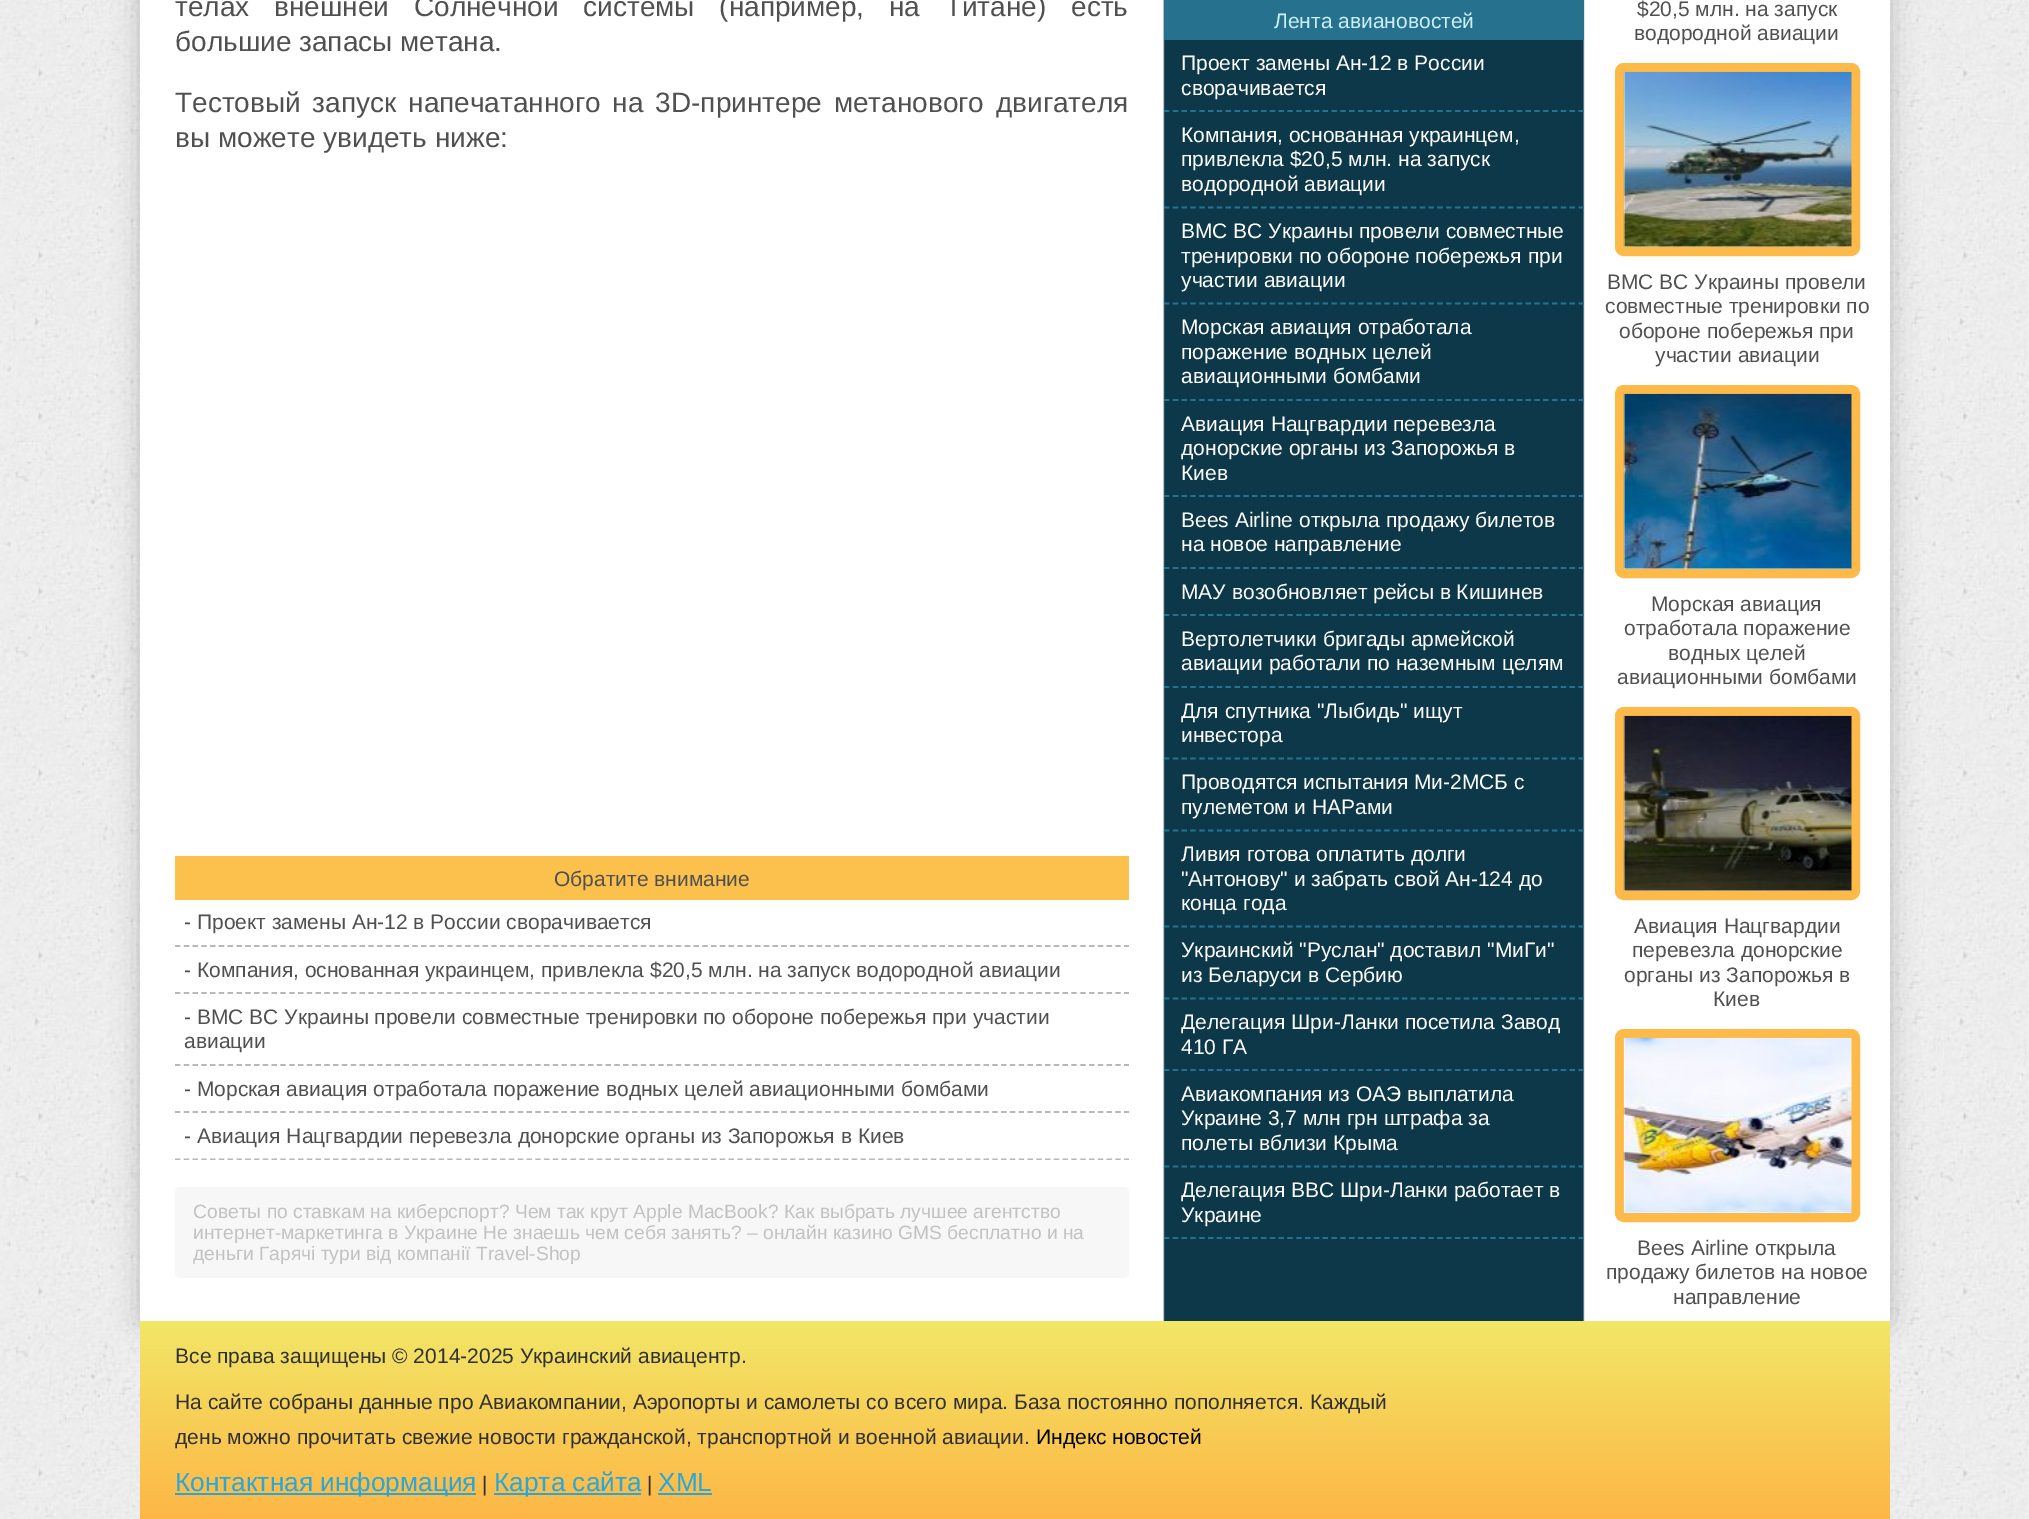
%!PS
<< /PageSize [2029 1519] /PageUsesTransparency true >> setpagedevice
/alpha { dup .setfillconstantalpha .setstrokeconstantalpha } def
/roundrect { 5 dict begin { /r /h /w /y /x } { exch def } forall
  x r add y moveto x w add y 2 copy h add r arct x w add y h add x 1 index r arct
  x y h add x y r arct x y 2 copy exch w add exch r arct closepath end } def
/shadow { 12 dict begin { /a /b /q /h /w /y /x } { exch def } forall gsave /was 0 def
  9 -2 -9 { dup b mul 4 div /e exch def 1 sub .425 mul 2.718 exch exp 1 add a .99 .min exch div /now exch def
    1 1 now sub 1 was sub div sub alpha /was now def
    w h .min e 2 mul add 0 gt { x e sub y e sub w e 2 mul add h e 2 mul add
      q e add b .6 mul add w h .min 2 div e add .min 0 .max roundrect fill } if } for grestore end } def
/picture { 5 dict begin { /h /w /y /x /name } { exch def } forall
  gsave x y translate w h scale
  w h 8 [w 0 0 h 0 0] name (r) file false 3 colorimage grestore end } def
0 .pushpdf14devicefilter
0 1519 translate 1 -1 scale
4 setmiterlimit
1 setgray
0 0 2029 1519 rectfill
(img1.rgb) 0 0 2029 1519 picture
0 setgray
140 -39 1750 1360 0 13 0.2 shadow
1 setgray
140 0 1750 1321 rectfill
(img2.rgb) 1163 0 422 1321 picture
/LiberationSans-Regular [28 0 0 -28 0 0] selectfont
0.314 setgray
175 16 moveto 17 0 32 (телах внешней Солнечной системы \(например, на Титане\) есть) widthshow
175 51 moveto (большие запасы метана.) show
175 112 moveto 4 0 32 (Тестовый запуск напечатанного на 3D-принтере метанового двигателя) widthshow
175 147 moveto (вы можете увидеть ниже:) show
0.984 0.757 0.298 setrgbcolor
175 856 954 44 rectfill
/LiberationSans-Regular [21 0 0 -21 0 0] selectfont
0.314 setgray
554 886 moveto (Обратите внимание) show
0.722 setgray
1.8 setlinewidth
[5.25 3.54] 0 setdash
newpath 175 946 moveto 1129 946 lineto stroke
0.314 setgray
184 929 moveto (- Проект замены Ан-12 в России сворачивается) show
0.722 setgray
newpath 175 993 moveto 1129 993 lineto stroke
0.314 setgray
184 977 moveto (- Компания, основанная украинцем, привлекла $20,5 млн. на запуск водородной авиации) show
0.722 setgray
newpath 175 1065 moveto 1129 1065 lineto stroke
0.314 setgray
184 1024 moveto (- ВМС ВС Украины провели совместные тренировки по обороне побережья при участии) show
184 1048 moveto (авиации) show
0.722 setgray
newpath 175 1112 moveto 1129 1112 lineto stroke
0.314 setgray
184 1096 moveto (- Морская авиация отработала поражение водных целей авиационными бомбами) show
gsave
175 856 954 304 rectclip
0.722 setgray
newpath 175 1159.5 moveto 1129 1159.5 lineto stroke
grestore
184 1143 moveto (- Авиация Нацгвардии перевезла донорские органы из Запорожья в Киев) show
0.969 setgray
175 1187 954 91 5 roundrect fill
/LiberationSans-Regular [19.25 0 0 -19.25 0 0] selectfont
0.761 setgray
193 1218 moveto (Советы по ставкам на киберспорт? Чем так крут Apple MacBook? Как выбрать лучшее агентство) show
193 1239 moveto (интернет-маркетинга в Украине Не знаешь чем себя занять? – онлайн казино GMS бесплатно и на) show
193 1260 moveto (деньги Гарячі тури від компанії Travel-Shop) show
0.149 0.443 0.557 setrgbcolor
1164 0 420 40 rectfill
/LiberationSans-Regular [21 0 0 -21 0 0] selectfont
0.8 0.937 0.988 setrgbcolor
1274 28 moveto (Лента авиановостей) show
0.149 0.443 0.557 setrgbcolor
[5.25 3.57] 0 setdash
newpath 1164 111 moveto 1584 111 lineto stroke
1 setgray
1181 70 moveto (Проект замены Ан-12 в России) show
1181 95 moveto (сворачивается) show
0.149 0.443 0.557 setrgbcolor
newpath 1164 207.5 moveto 1584 207.5 lineto stroke
1 setgray
1181 142 moveto (Компания, основанная украинцем,) show
1181 166 moveto (привлекла $20,5 млн. на запуск) show
1181 191 moveto (водородной авиации) show
0.149 0.443 0.557 setrgbcolor
newpath 1164 303.5 moveto 1584 303.5 lineto stroke
1 setgray
1181 238 moveto (ВМС ВС Украины провели совместные) show
1181 263 moveto (тренировки по обороне побережья при) show
1181 287 moveto (участии авиации) show
0.149 0.443 0.557 setrgbcolor
newpath 1164 400 moveto 1584 400 lineto stroke
1 setgray
1181 334 moveto (Морская авиация отработала) show
1181 359 moveto (поражение водных целей) show
1181 383 moveto (авиационными бомбами) show
0.149 0.443 0.557 setrgbcolor
newpath 1164 496 moveto 1584 496 lineto stroke
1 setgray
1181 431 moveto (Авиация Нацгвардии перевезла) show
1181 455 moveto (донорские органы из Запорожья в) show
1181 480 moveto (Киев) show
0.149 0.443 0.557 setrgbcolor
newpath 1164 568 moveto 1584 568 lineto stroke
1 setgray
1181 527 moveto (Bees Airline открыла продажу билетов) show
1181 551 moveto (на новое направление) show
0.149 0.443 0.557 setrgbcolor
newpath 1164 615 moveto 1584 615 lineto stroke
1 setgray
1181 599 moveto (МАУ возобновляет рейсы в Кишинев) show
0.149 0.443 0.557 setrgbcolor
newpath 1164 687 moveto 1584 687 lineto stroke
1 setgray
1181 646 moveto (Вертолетчики бригады армейской) show
1181 670 moveto (авиации работали по наземным целям) show
0.149 0.443 0.557 setrgbcolor
newpath 1164 758.5 moveto 1584 758.5 lineto stroke
1 setgray
1181 718 moveto (Для спутника "Лыбидь" ищут) show
1181 742 moveto (инвестора) show
0.149 0.443 0.557 setrgbcolor
newpath 1164 830.5 moveto 1584 830.5 lineto stroke
1 setgray
1181 789 moveto (Проводятся испытания Ми-2МСБ с) show
1181 814 moveto (пулеметом и НАРами) show
0.149 0.443 0.557 setrgbcolor
newpath 1164 926.5 moveto 1584 926.5 lineto stroke
1 setgray
1181 861 moveto (Ливия готова оплатить долги) show
1181 886 moveto ("Антонову" и забрать свой Ан-124 до) show
1181 910 moveto (конца года) show
0.149 0.443 0.557 setrgbcolor
newpath 1164 998.5 moveto 1584 998.5 lineto stroke
1 setgray
1181 957 moveto (Украинский "Руслан" доставил "МиГи") show
1181 982 moveto (из Беларуси в Сербию) show
0.149 0.443 0.557 setrgbcolor
newpath 1164 1070 moveto 1584 1070 lineto stroke
1 setgray
1181 1029 moveto (Делегация Шри-Ланки посетила Завод) show
1181 1054 moveto (410 ГА) show
0.149 0.443 0.557 setrgbcolor
newpath 1164 1166.5 moveto 1584 1166.5 lineto stroke
1 setgray
1181 1101 moveto (Авиакомпания из ОАЭ выплатила) show
1181 1125 moveto (Украине 3,7 млн грн штрафа за) show
1181 1150 moveto (полеты вблизи Крыма) show
0.149 0.443 0.557 setrgbcolor
newpath 1164 1238 moveto 1584 1238 lineto stroke
1 setgray
1181 1197 moveto (Делегация ВВС Шри-Ланки работает в) show
1181 1222 moveto (Украине) show
0.314 setgray
1637 16 moveto ($20,5 млн. на запуск) show
1634 40 moveto (водородной авиации) show
0.992 0.729 0.282 setrgbcolor
9 setlinewidth
[] 0 setdash
1619.5 67.5 236 184 4.5 roundrect stroke
(img3.rgb) 1623 71 229 176 picture
0.314 setgray
1607 289 moveto (ВМС ВС Украины провели) show
1605 313 moveto (совместные тренировки по) show
1619 338 moveto (обороне побережья при) show
1655 362 moveto (участии авиации) show
0.992 0.729 0.282 setrgbcolor
1619.5 389.5 236 184 4.5 roundrect stroke
(img4.rgb) 1623 393 229 176 picture
0.314 setgray
1651 611 moveto (Морская авиация) show
1624 635 moveto (отработала поражение) show
1668 660 moveto (водных целей) show
1617 684 moveto (авиационными бомбами) show
0.992 0.729 0.282 setrgbcolor
1619.5 711.5 236 184 4.5 roundrect stroke
(img5.rgb) 1623 715 229 176 picture
0.314 setgray
1634 933 moveto (Авиация Нацгвардии) show
1632 957 moveto (перевезла донорские) show
1624 982 moveto (органы из Запорожья в) show
1713 1006 moveto (Киев) show
0.992 0.729 0.282 setrgbcolor
1619.5 1033.5 236 184 4.5 roundrect stroke
(img6.rgb) 1623 1037 229 176 picture
0.314 setgray
1637 1255 moveto (Bees Airline открыла) show
1606 1279 moveto (продажу билетов на новое) show
1673 1304 moveto (направление) show
gsave newpath 140 1321 moveto 1890 1321 lineto 1890 1519 lineto 140 1519 lineto closepath clip newpath
<< /ShadingType 2 /ColorSpace /DeviceRGB /Coords [1015 1321 1015 1519] /Extend [true true] /Function << /FunctionType 2 /Domain [0 1] /C0 [0.945 0.906 0.404] /C1 [0.996 0.714 0.271] /N 1 >> >> shfill grestore
0.188 setgray
175 1363 moveto (Все права защищены © 2014-2025 Украинский авиацентр.) show
175 1409 moveto (На сайте собраны данные про Авиакомпании, Аэропорты и самолеты со всего мира. База постоянно пополняется. Каждый) show
175 1444 moveto (день можно прочитать свежие новости гражданской, транспортной и военной авиации.) show
0 setgray
1036 1444 moveto (Индекс новостей) show
0.161 0.651 0.855 setrgbcolor
175 1493 301 2 rectfill
/LiberationSans-Regular [26.25 0 0 -26.25 0 0] selectfont
175 1491 moveto (Контактная информация) show
/LiberationSans-Regular [21 0 0 -21 0 0] selectfont
0.188 setgray
482 1491 moveto (|) show
0.161 0.651 0.855 setrgbcolor
494 1493 147 2 rectfill
/LiberationSans-Regular [26.25 0 0 -26.25 0 0] selectfont
494 1491 moveto (Карта сайта) show
/LiberationSans-Regular [21 0 0 -21 0 0] selectfont
0.188 setgray
647 1491 moveto (|) show
/LiberationSans-Regular [26.25 0 0 -26.25 0 0] selectfont
0.161 0.651 0.855 setrgbcolor
658 1491 moveto (XML) show
658 1493 54 2 rectfill
.poppdf14devicefilter showpage
